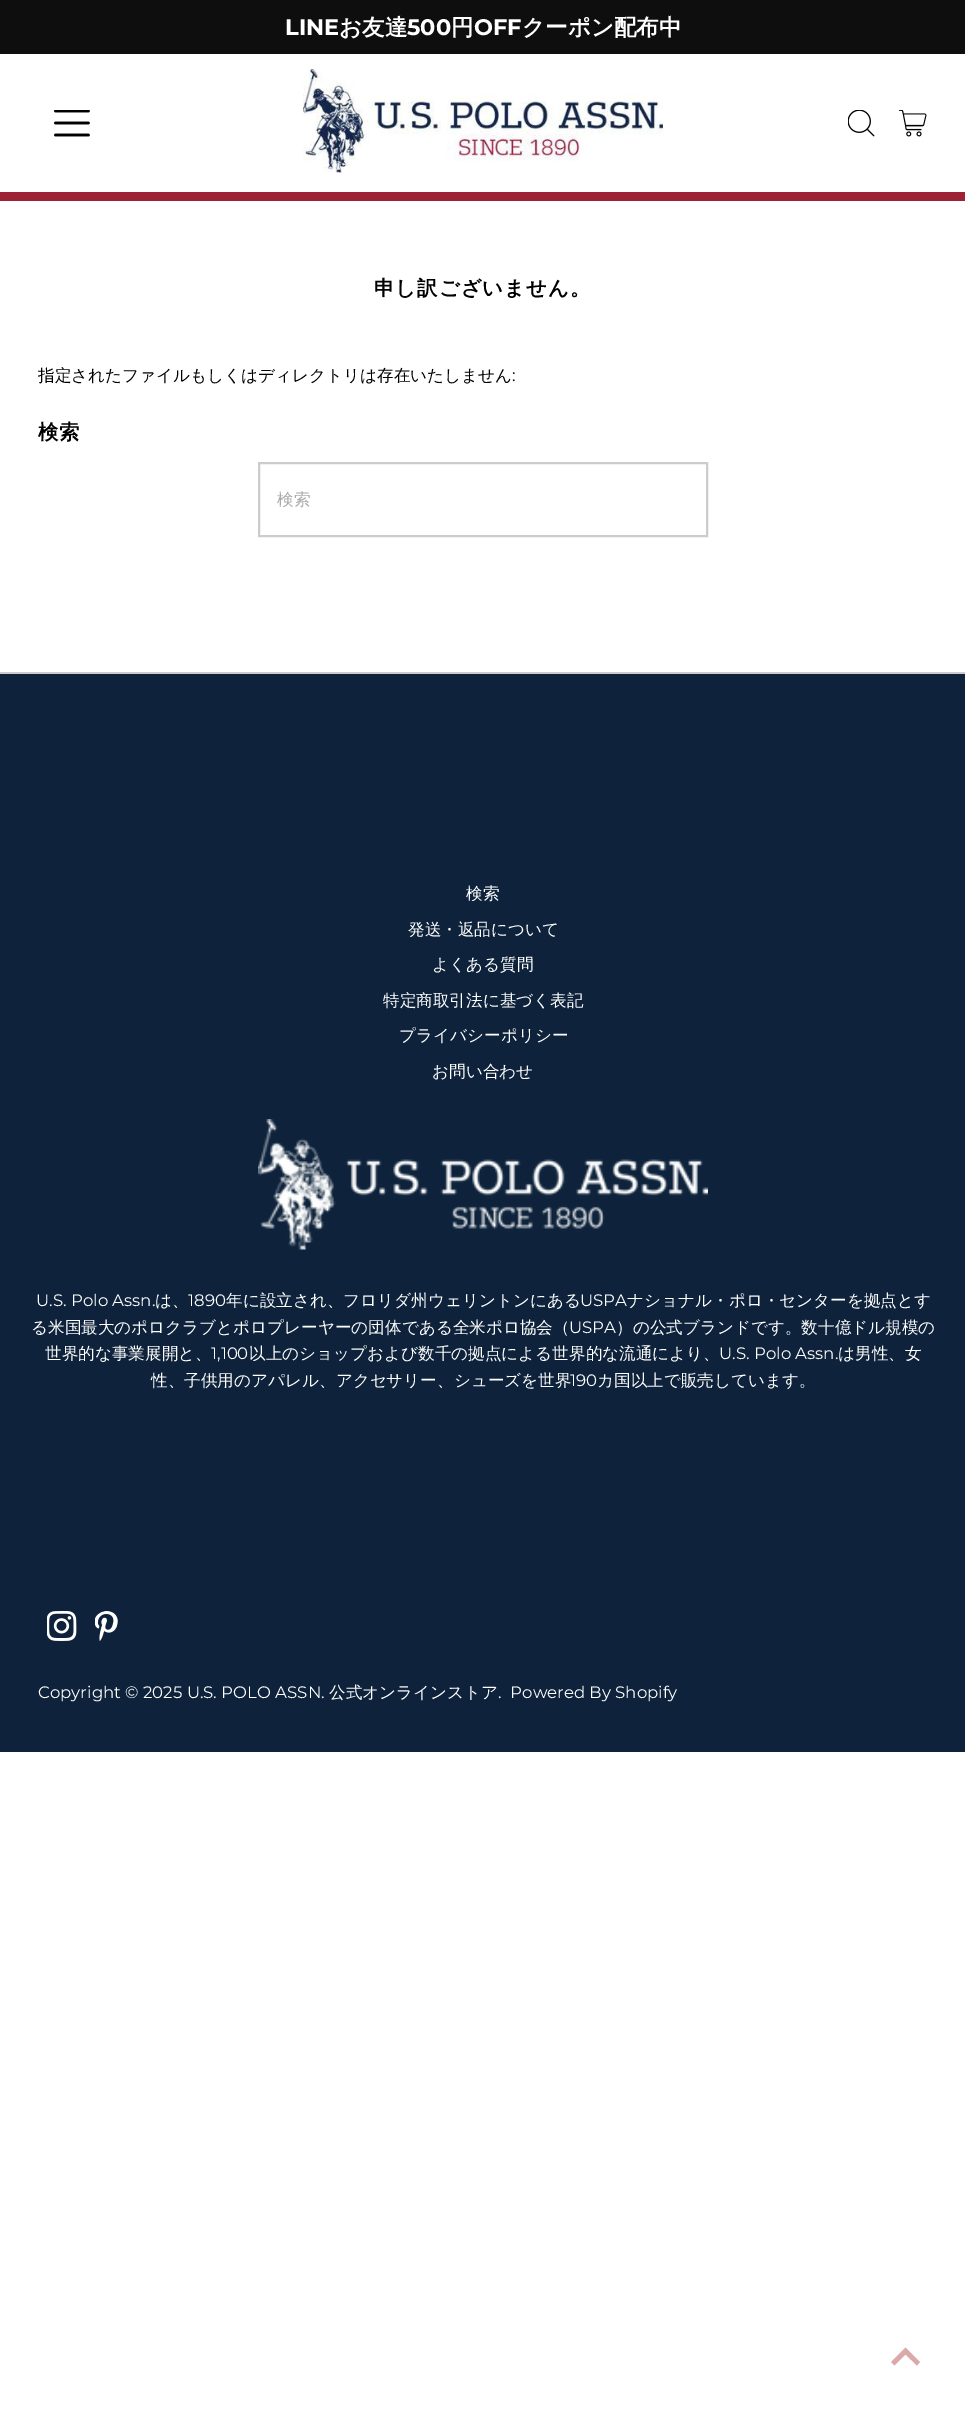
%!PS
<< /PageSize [965 2419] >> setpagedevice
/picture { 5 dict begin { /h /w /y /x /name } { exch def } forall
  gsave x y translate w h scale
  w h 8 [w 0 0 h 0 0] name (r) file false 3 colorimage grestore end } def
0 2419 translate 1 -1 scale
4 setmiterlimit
1 setgray
0 0 965 2419 rectfill
0.055 setgray
0 0 965 54 rectfill
/Montserrat-Bold [22.5 0 0 -22.5 0 0] selectfont
1 setgray
285 35 moveto (LINE) show
/WenQuanYiZenHei-Bold [22.5 0 0 -22.5 0 0] selectfont
339 35 moveto (お友達) show
/Montserrat-Bold [22.5 0 0 -22.5 0 0] selectfont
407 35 moveto (500) show
/WenQuanYiZenHei-Bold [22.5 0 0 -22.5 0 0] selectfont
451 35 moveto (円) show
/Montserrat-Bold [22.5 0 0 -22.5 0 0] selectfont
474 35 moveto (OFF) show
/WenQuanYiZenHei-Bold [22.5 0 0 -22.5 0 0] selectfont
522 35 moveto (クーポン配布中) show
(img1.rgb) 54 110 36 27 picture
(img2.rgb) 303 69 360 104 picture
(img3.rgb) 848 110 27 27 picture
(img4.rgb) 899 110 28 27 picture
0.616 0.133 0.208 setrgbcolor
0 192 965 9 rectfill
/WenQuanYiZenHei-Bold [20.4 0 0 -20.4 0 0] selectfont
0 setgray
374 295 moveto 1 0 (申し訳ございません。) ashow
/WenQuanYiZenHei-Medium [16.6 0 0 -16.6 0 0] selectfont
38 381 moveto (指定されたファイルもしくはディレクトリは存在いたしません) show
/Montserrat-Regular [16.6 0 0 -16.6 0 0] selectfont
512 381 moveto (:) show
/WenQuanYiZenHei-Bold [20.4 0 0 -20.4 0 0] selectfont
38 439 moveto 1 0 (検索) ashow
0.8 setgray
2 setlinewidth
259 463 448 73 rectstroke
/WenQuanYiZenHei-Medium [16.6 0 0 -16.6 0 0] selectfont
0.667 setgray
277 505 moveto (検索) show
0.055 0.137 0.231 setrgbcolor
0 674 965 1078 rectfill
0.8 setgray
0 672 965 2 rectfill
1 setgray
466 899 moveto (検索) show
408 935 moveto (発送・返品について) show
432 970 moveto (よくある質問) show
383 1006 moveto (特定商取引法に基づく表記) show
399 1041 moveto (プライバシーポリシー) show
432 1077 moveto (お問い合わせ) show
(img5.rgb) 258 1119 450 131 picture
/Montserrat-Regular [16.6 0 0 -16.6 0 0] selectfont
36 1306 moveto (U.S. Polo Assn.) show
/WenQuanYiZenHei-Medium [16.6 0 0 -16.6 0 0] selectfont
155 1306 moveto (は、) show
/Montserrat-Regular [16.6 0 0 -16.6 0 0] selectfont
188 1306 moveto (1890) show
/WenQuanYiZenHei-Medium [16.6 0 0 -16.6 0 0] selectfont
226 1306 moveto (年に設立され、フロリダ州ウェリントンにある) show
/Montserrat-Regular [16.6 0 0 -16.6 0 0] selectfont
580 1306 moveto (USPA) show
/WenQuanYiZenHei-Medium [16.6 0 0 -16.6 0 0] selectfont
627 1306 moveto (ナショナル・ポロ・センターを拠点とす) show
31 1333 moveto (る米国最大のポロクラブとポロプレーヤーの団体である全米ポロ協会（) show
/Montserrat-Regular [16.6 0 0 -16.6 0 0] selectfont
569 1333 moveto (USPA) show
/WenQuanYiZenHei-Medium [16.6 0 0 -16.6 0 0] selectfont
616 1333 moveto (）の公式ブランドです。数十億ドル規模の) show
45 1359 moveto (世界的な事業展開と、) show
/Montserrat-Regular [16.6 0 0 -16.6 0 0] selectfont
211 1359 moveto (1,100) show
/WenQuanYiZenHei-Medium [16.6 0 0 -16.6 0 0] selectfont
249 1359 moveto (以上のショップおよび数千の拠点による世界的な流通により、) show
/Montserrat-Regular [16.6 0 0 -16.6 0 0] selectfont
719 1359 moveto (U.S. Polo Assn.) show
/WenQuanYiZenHei-Medium [16.6 0 0 -16.6 0 0] selectfont
838 1359 moveto (は男性、女) show
151 1386 moveto (性、子供用のアパレル、アクセサリー、シューズを世界) show
/Montserrat-Regular [16.6 0 0 -16.6 0 0] selectfont
570 1386 moveto (190) show
/WenQuanYiZenHei-Medium [16.6 0 0 -16.6 0 0] selectfont
597 1386 moveto (カ国以上で販売しています。) show
(img6.rgb) 47 1611 30 30 picture
(img7.rgb) 95 1611 23 30 picture
/Montserrat-Regular [16.6 0 0 -16.6 0 0] selectfont
38 1698 moveto (Copyright © 2025 U.S. POLO ASSN.) show
/WenQuanYiZenHei-Medium [16.6 0 0 -16.6 0 0] selectfont
329 1698 moveto (公式オンラインストア) show
/Montserrat-Regular [16.6 0 0 -16.6 0 0] selectfont
498 1698 moveto (.  Powered By Shopify) show
0.855 0.667 0.667 setrgbcolor
newpath 905.5 2347.5 moveto 891 2362 lineto 894.5 2365.5 lineto 905.5 2354.5 lineto 917 2365.5 lineto 920 2362 lineto closepath fill
showpage
